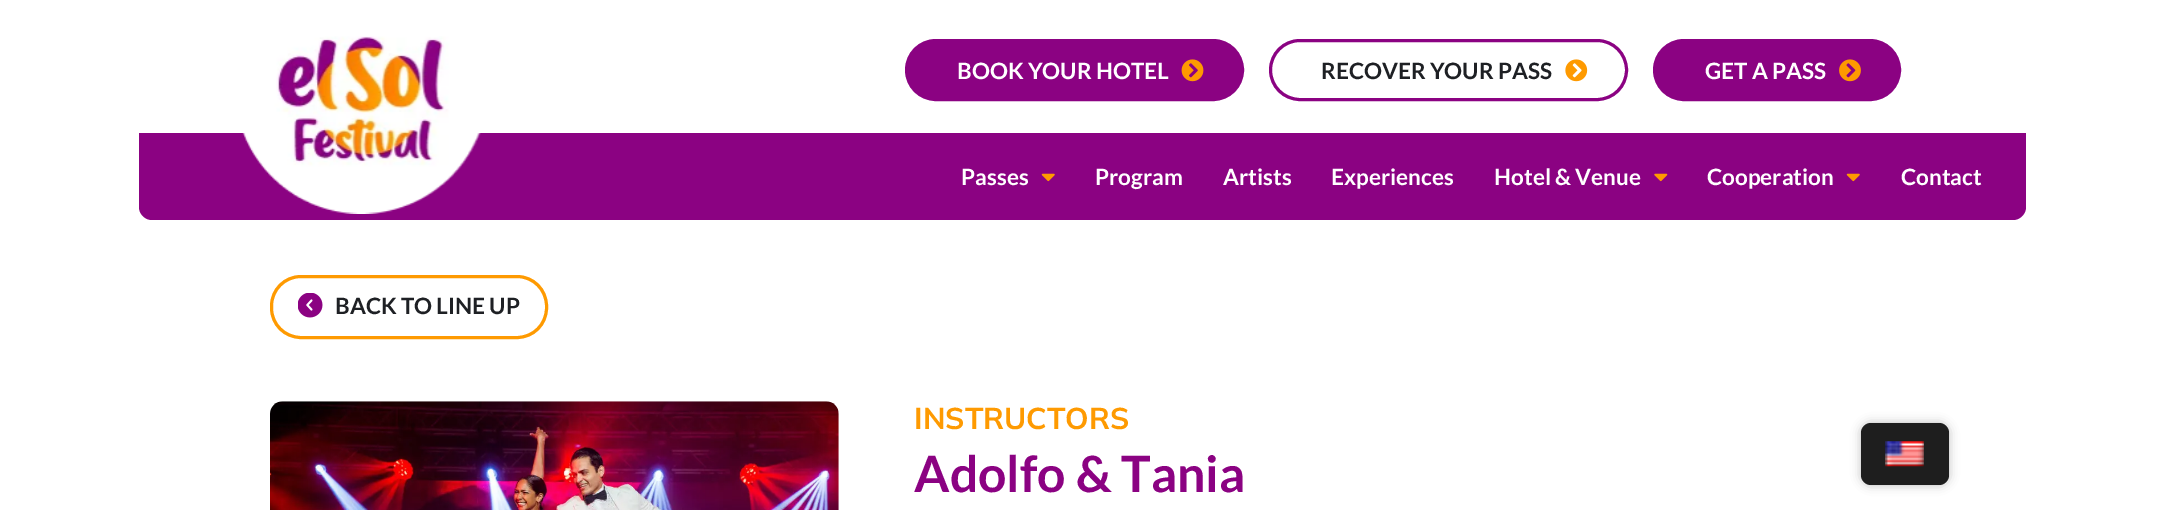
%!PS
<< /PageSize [2165 510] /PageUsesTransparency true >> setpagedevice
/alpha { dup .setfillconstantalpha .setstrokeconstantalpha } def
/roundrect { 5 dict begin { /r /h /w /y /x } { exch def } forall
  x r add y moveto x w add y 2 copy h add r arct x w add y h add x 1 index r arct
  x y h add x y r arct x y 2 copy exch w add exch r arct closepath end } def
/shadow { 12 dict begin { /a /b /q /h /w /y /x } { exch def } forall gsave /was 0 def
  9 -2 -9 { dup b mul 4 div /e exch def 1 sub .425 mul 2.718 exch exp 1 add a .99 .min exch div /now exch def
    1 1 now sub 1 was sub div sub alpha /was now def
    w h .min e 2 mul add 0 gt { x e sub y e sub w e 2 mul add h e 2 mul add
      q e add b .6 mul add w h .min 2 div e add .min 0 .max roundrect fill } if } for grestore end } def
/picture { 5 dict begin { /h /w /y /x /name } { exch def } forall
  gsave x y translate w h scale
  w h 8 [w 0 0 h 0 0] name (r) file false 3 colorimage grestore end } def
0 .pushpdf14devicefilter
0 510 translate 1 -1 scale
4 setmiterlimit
1 setgray
0 0 2165 510 rectfill
0.545 0.008 0.51 setrgbcolor
newpath 139 133 moveto 2026 133 lineto 2026 207 lineto 2026 214 2020 220 2013 220 curveto 152 220 lineto 145 220 139 214 139 207 curveto closepath fill
(img1.rgb) 242 36 239 178 picture
906.5 40.5 336 59 29.5 roundrect gsave fill grestore
3 setlinewidth
stroke
/Lato-Bold [22.5 0 0 -22.5 0 0] selectfont
1 setgray
957 79 moveto (BOOK YOUR HOTEL) show
(img2.rgb) 1181 59 23 23 picture
0.545 0.008 0.51 setrgbcolor
1270.5 40.5 356 59 29.5 roundrect stroke
0.118 0.125 0.141 setrgbcolor
1321 79 moveto (RECOVER YOUR PASS) show
(img3.rgb) 1565 59 23 23 picture
0.545 0.008 0.51 setrgbcolor
1654.5 40.5 245 59 29.5 roundrect gsave fill grestore
stroke
1 setgray
1705 79 moveto (GET A PASS) show
(img4.rgb) 1839 59 22 23 picture
961 185 moveto (Passes) show
(img5.rgb) 1041 173 14 9 picture
1095 185 moveto (Program) show
1223 185 moveto (Artists) show
1331 185 moveto (Experiences) show
1494 185 moveto (Hotel & Venue) show
(img6.rgb) 1654 173 14 9 picture
1707 185 moveto (Cooperation) show
(img5.rgb) 1846 173 14 9 picture
1901 185 moveto (Contact) show
0.996 0.604 0.004 setrgbcolor
271.5 276.5 275 61 29.5 roundrect stroke
(img7.rgb) 298 293 25 25 picture
0.118 0.125 0.141 setrgbcolor
335 314 moveto (BACK TO LINE UP) show
(img8.rgb) 270 401 569 109 picture
/Mulish-Bold [30 0 0 -30 0 0] selectfont
0.996 0.604 0.004 setrgbcolor
914 429 moveto (INSTRUCTORS) show
/Lato-Bold [50 0 0 -50 0 0] selectfont
0.545 0.008 0.51 setrgbcolor
914 492 moveto (Adolfo & Tania) show
0 setgray
1861 423 88 62 10 5 0.25 shadow
0.118 setgray
1861 423 88 62 10 roundrect fill
(img9.rgb) 1885 441 39 26 picture
.poppdf14devicefilter showpage
